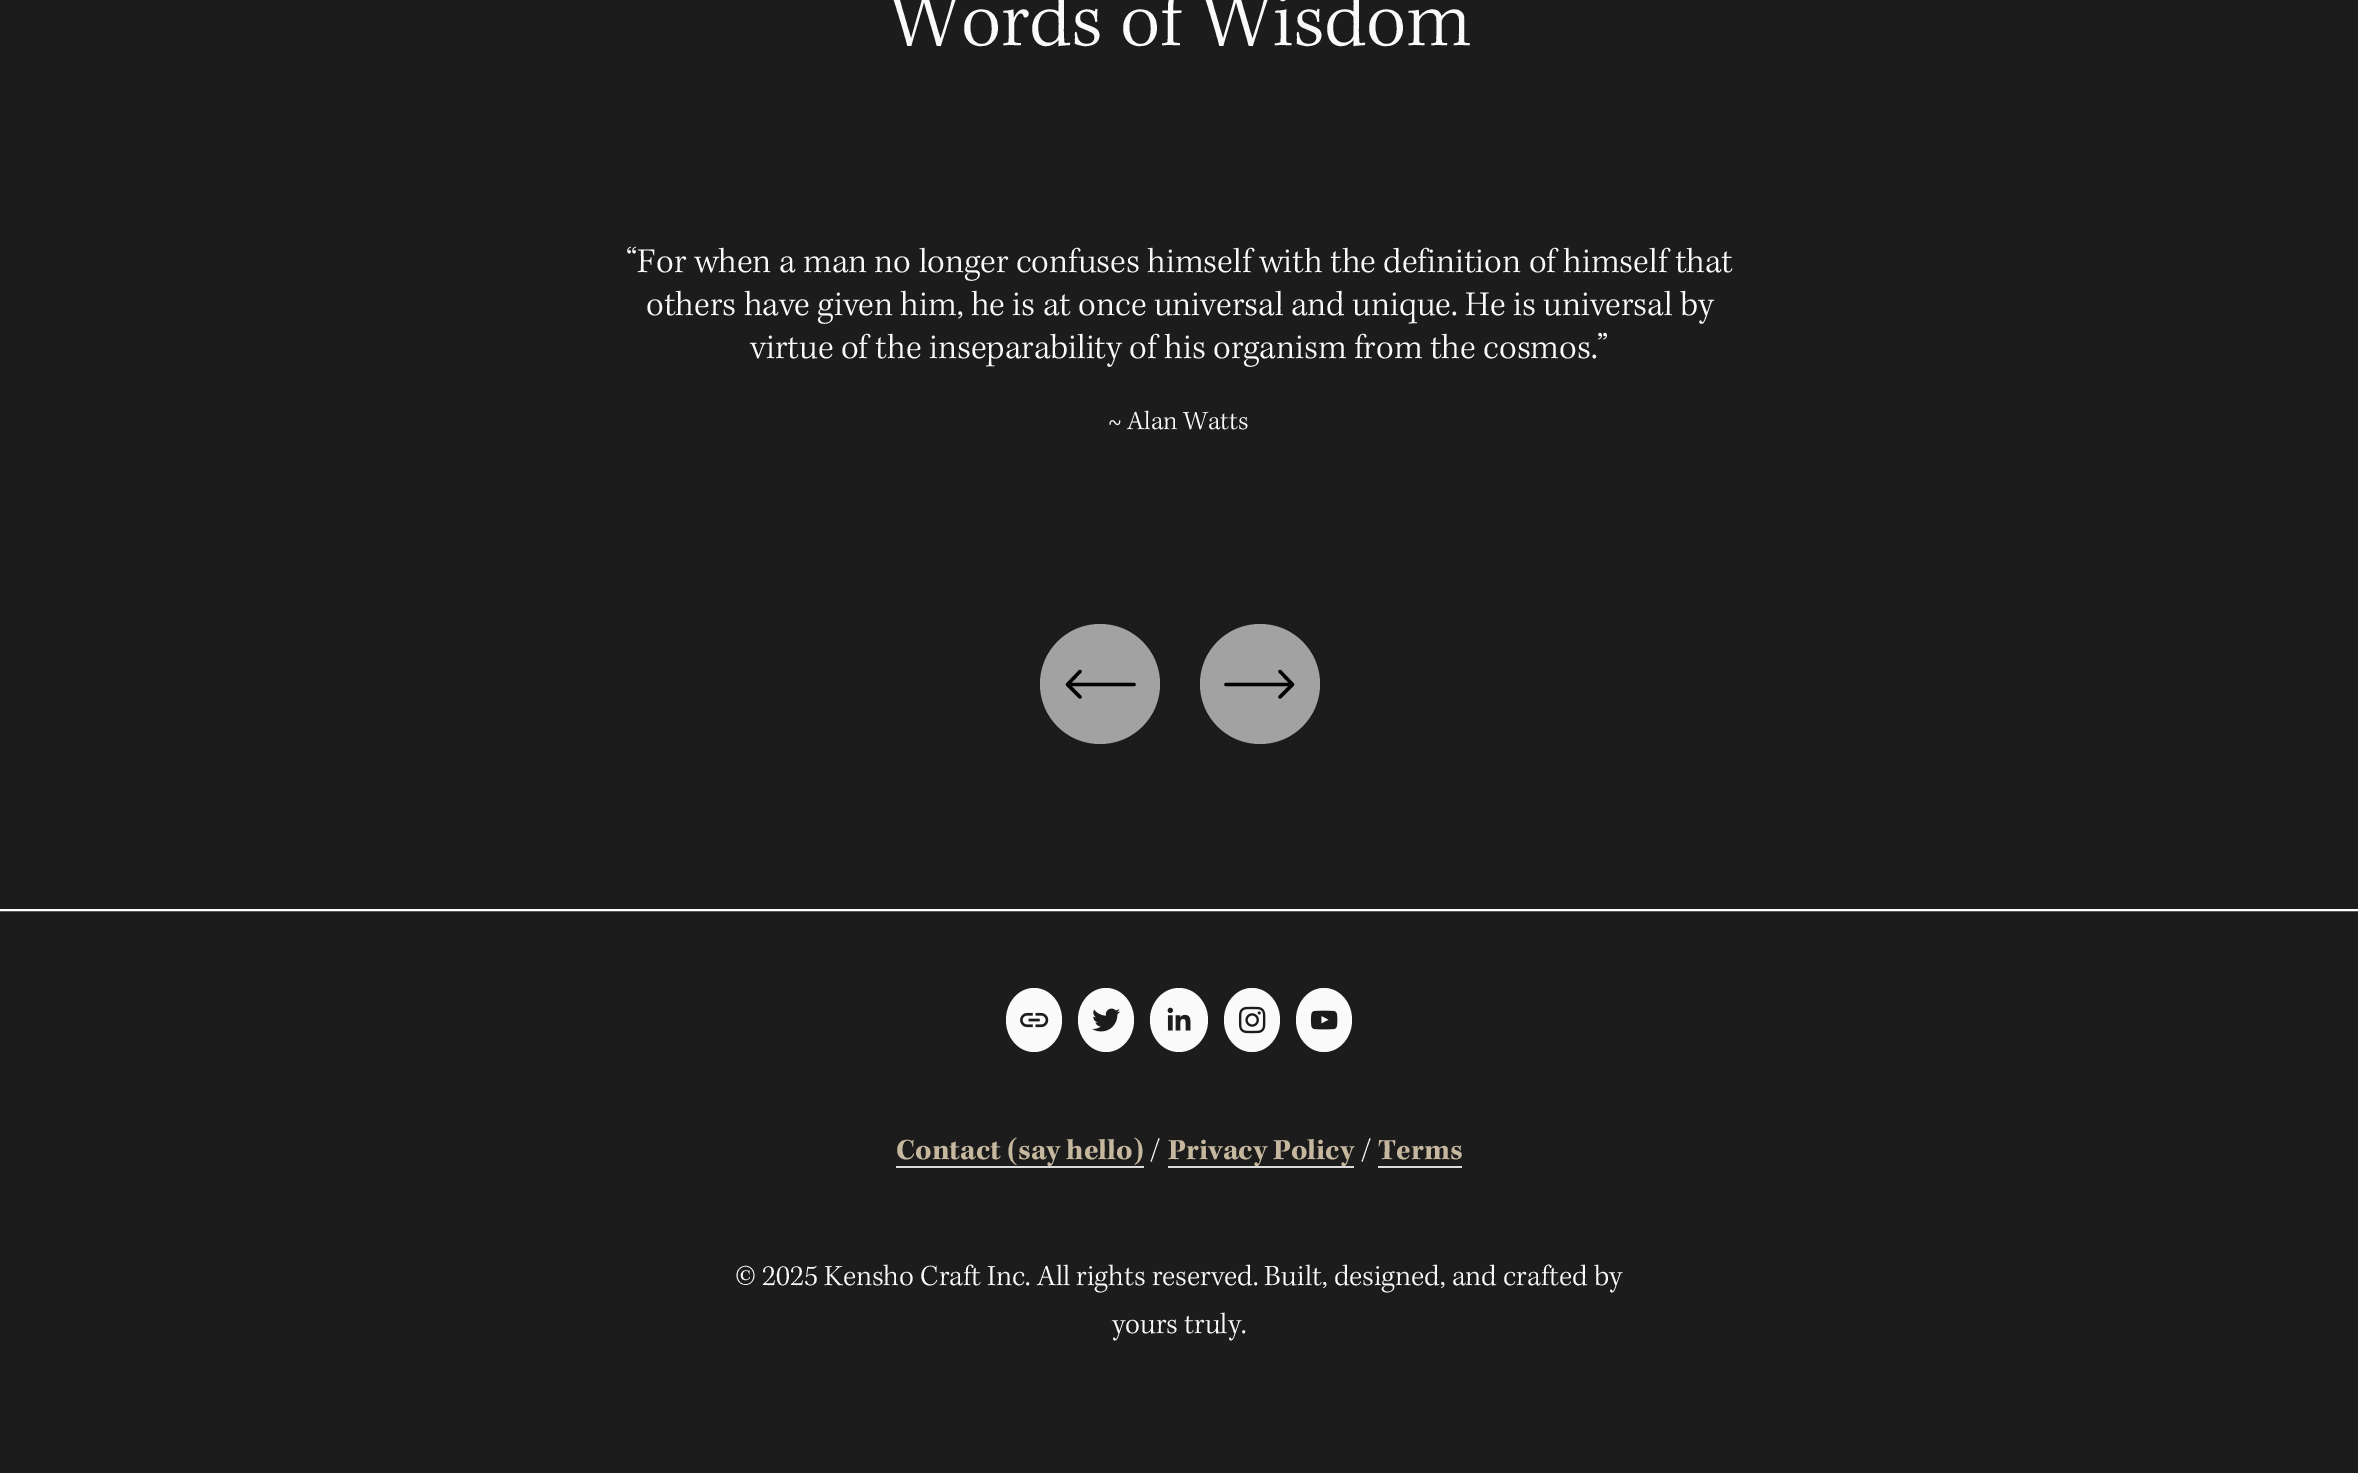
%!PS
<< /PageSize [2358 1473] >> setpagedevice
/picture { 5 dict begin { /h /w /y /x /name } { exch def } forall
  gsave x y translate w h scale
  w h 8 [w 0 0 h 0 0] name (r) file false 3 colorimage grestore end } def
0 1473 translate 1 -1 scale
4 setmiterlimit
0.11 setgray
0 0 2358 1473 rectfill
/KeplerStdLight-Light [81 0 0 -81 0 0] selectfont
0.98 setgray
887 45 moveto (Words of Wisdom) show
/KeplerStdLight-Light [35.65 0 0 -35.65 0 0] selectfont
626 272 moveto (“For when a man no longer confuses himself with the definition of himself that) show
646 315 moveto (others have given him, he is at once universal and unique. He is universal by) show
750 358 moveto (virtue of the inseparability of his organism from the cosmos.”) show
/KeplerStdLight-Light [27 0 0 -27 0 0] selectfont
1108 429 moveto (~ Alan Watts) show
0.635 setgray
newpath 1100 684 60 0 360 arc closepath fill
0 setgray
3.3 setlinewidth
1 setlinecap
1 setlinejoin
newpath 1080 697 moveto 1067.5 684.5 lineto 1080 671.5 lineto stroke
newpath 1134 684.5 moveto 1069.5 684.5 lineto stroke
0.635 setgray
newpath 1260 684 60 0 360 arc closepath fill
0 setgray
newpath 1280 671.5 moveto 1292.5 684.5 lineto 1280 697 lineto stroke
newpath 1226 684.5 moveto 1290.5 684.5 lineto stroke
1 setgray
2 setlinewidth
2 setlinecap
0 setlinejoin
newpath -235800 377 moveto -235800 1443.5 lineto 0 910 moveto 2358 910 lineto stroke
0.98 setgray
newpath 1034 988 moveto 1049.5 988 1062 1002.5 1062 1020 curveto 1062 1037.5 1049.5 1052 1034 1052 curveto 1018.5 1052 1006 1037.5 1006 1020 curveto 1006 1002.5 1018.5 988 1034 988 curveto closepath fill
(img1.rgb) 1020 1012 29 16 picture
newpath 1106 988 moveto 1121.5 988 1134 1002.5 1134 1020 curveto 1134 1037.5 1121.5 1052 1106 1052 curveto 1090.5 1052 1078 1037.5 1078 1020 curveto 1078 1002.5 1090.5 988 1106 988 curveto closepath fill
(img2.rgb) 1092 1008 29 24 picture
newpath 1179 988 moveto 1195 988 1208 1002.5 1208 1020 curveto 1208 1037.5 1195 1052 1179 1052 curveto 1163 1052 1150 1037.5 1150 1020 curveto 1150 1002.5 1163 988 1179 988 curveto closepath fill
(img3.rgb) 1167 1007 24 24 picture
newpath 1252 988 moveto 1267.5 988 1280 1002.5 1280 1020 curveto 1280 1037.5 1267.5 1052 1252 1052 curveto 1236.5 1052 1224 1037.5 1224 1020 curveto 1224 1002.5 1236.5 988 1252 988 curveto closepath fill
(img4.rgb) 1238 1006 28 28 picture
newpath 1324 988 moveto 1339.5 988 1352 1002.5 1352 1020 curveto 1352 1037.5 1339.5 1052 1324 1052 curveto 1308.5 1052 1296 1037.5 1296 1020 curveto 1296 1002.5 1308.5 988 1324 988 curveto closepath fill
(img5.rgb) 1310 1010 28 20 picture
0.863 setgray
896 1166 248 2 rectfill
/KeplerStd-Bold [30 0 0 -30 0 0] selectfont
0.776 0.722 0.62 setrgbcolor
896 1159 moveto (Contact \(say hello\)) show
/KeplerStdLight-Light [30 0 0 -30 0 0] selectfont
0.98 setgray
1149 1159 moveto (/) show
0.863 setgray
1168 1166 186 2 rectfill
/KeplerStd-Bold [30 0 0 -30 0 0] selectfont
0.776 0.722 0.62 setrgbcolor
1168 1159 moveto (Privacy Policy) show
/KeplerStdLight-Light [30 0 0 -30 0 0] selectfont
0.98 setgray
1360 1159 moveto (/) show
/KeplerStd-Bold [30 0 0 -30 0 0] selectfont
0.776 0.722 0.62 setrgbcolor
1378 1159 moveto (Terms) show
0.863 setgray
1378 1166 84 2 rectfill
/KeplerStdLight-Light [30 0 0 -30 0 0] selectfont
0.98 setgray
735 1285 moveto (© 2025 Kensho Craft Inc. All rights reserved. Built, designed, and crafted by) show
1112 1333 moveto (yours truly.) show
showpage
